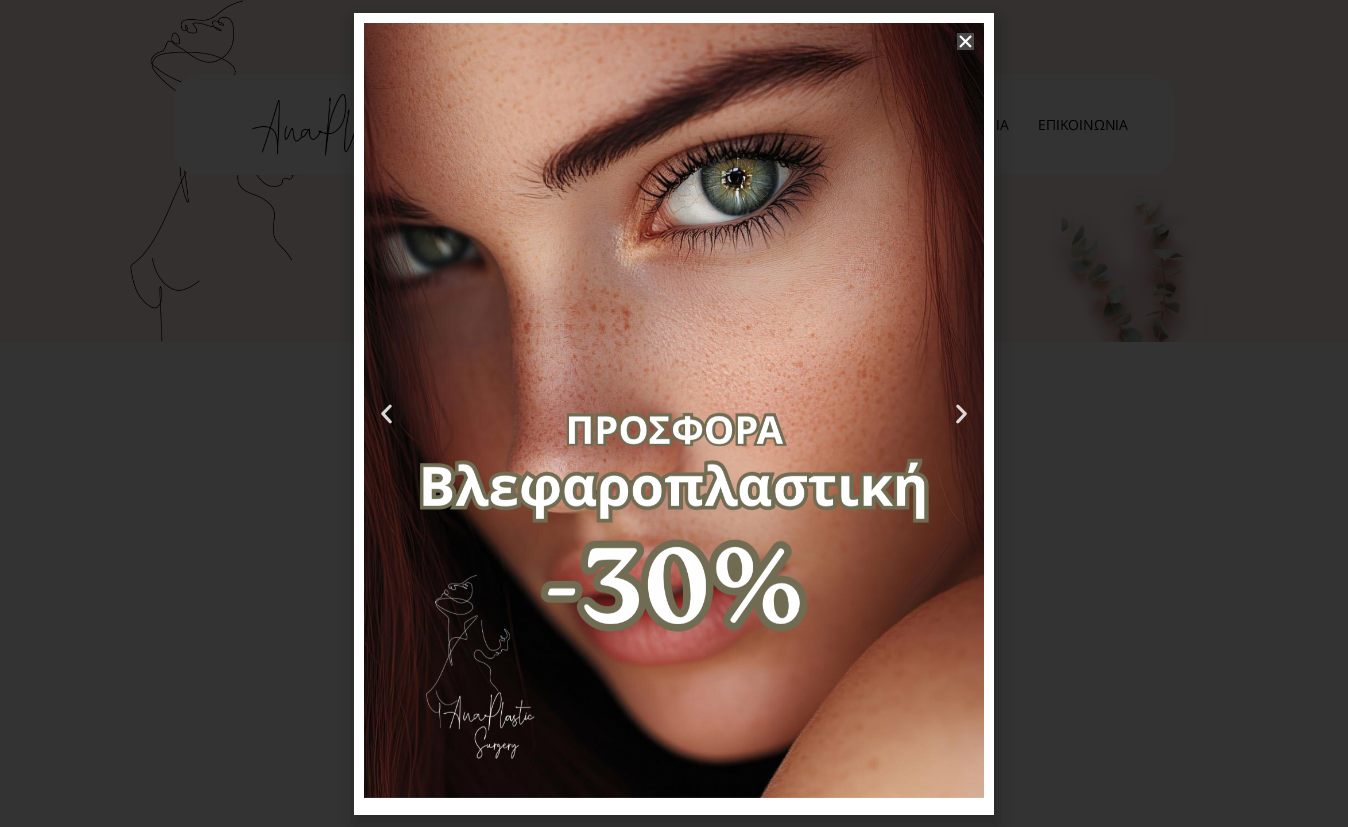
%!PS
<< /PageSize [1348 827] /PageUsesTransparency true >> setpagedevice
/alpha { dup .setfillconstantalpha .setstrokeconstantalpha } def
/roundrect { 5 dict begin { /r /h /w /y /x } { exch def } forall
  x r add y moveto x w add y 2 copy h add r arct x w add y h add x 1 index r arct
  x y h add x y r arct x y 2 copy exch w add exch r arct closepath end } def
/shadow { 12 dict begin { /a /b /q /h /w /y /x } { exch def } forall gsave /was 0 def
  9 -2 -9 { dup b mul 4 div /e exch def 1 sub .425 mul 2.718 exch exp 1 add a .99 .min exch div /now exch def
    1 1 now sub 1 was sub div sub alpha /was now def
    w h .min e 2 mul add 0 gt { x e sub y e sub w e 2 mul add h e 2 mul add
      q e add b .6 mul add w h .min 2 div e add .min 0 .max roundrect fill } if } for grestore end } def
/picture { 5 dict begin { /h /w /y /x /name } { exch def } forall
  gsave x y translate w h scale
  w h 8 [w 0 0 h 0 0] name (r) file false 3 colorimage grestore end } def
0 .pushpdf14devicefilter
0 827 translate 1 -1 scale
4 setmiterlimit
0.2 setgray
0 0 1348 827 rectfill
0.2 0.188 0.184 setrgbcolor
0 0 1348 342 rectfill
(img1.rgb) 130 0 167 342 picture
(img2.rgb) 1050 186 159 156 picture
0.2 setgray
174 75 1000 100 25 roundrect fill
(img7.rgb) 252 94 102 62 picture
0 setgray
353 18 646 808 0 11.5 0.2 shadow
1 setgray
354 13 640 802 rectfill
(img3.rgb) 364 23 620 775 picture
(img4.rgb) 381 404 11 20 picture
(img5.rgb) 956 404 11 20 picture
0.286 setgray
957 33 17 17 rectfill
(img6.rgb) 959 35 13 13 picture
/OpenSans-Regular [14 0 0 -14 0 0] selectfont
0 setgray
996 130 moveto (ΙΑ) show
1038 130 moveto (ΕΠΙΚΟΙΝΩΝΙΑ) show
.poppdf14devicefilter showpage
